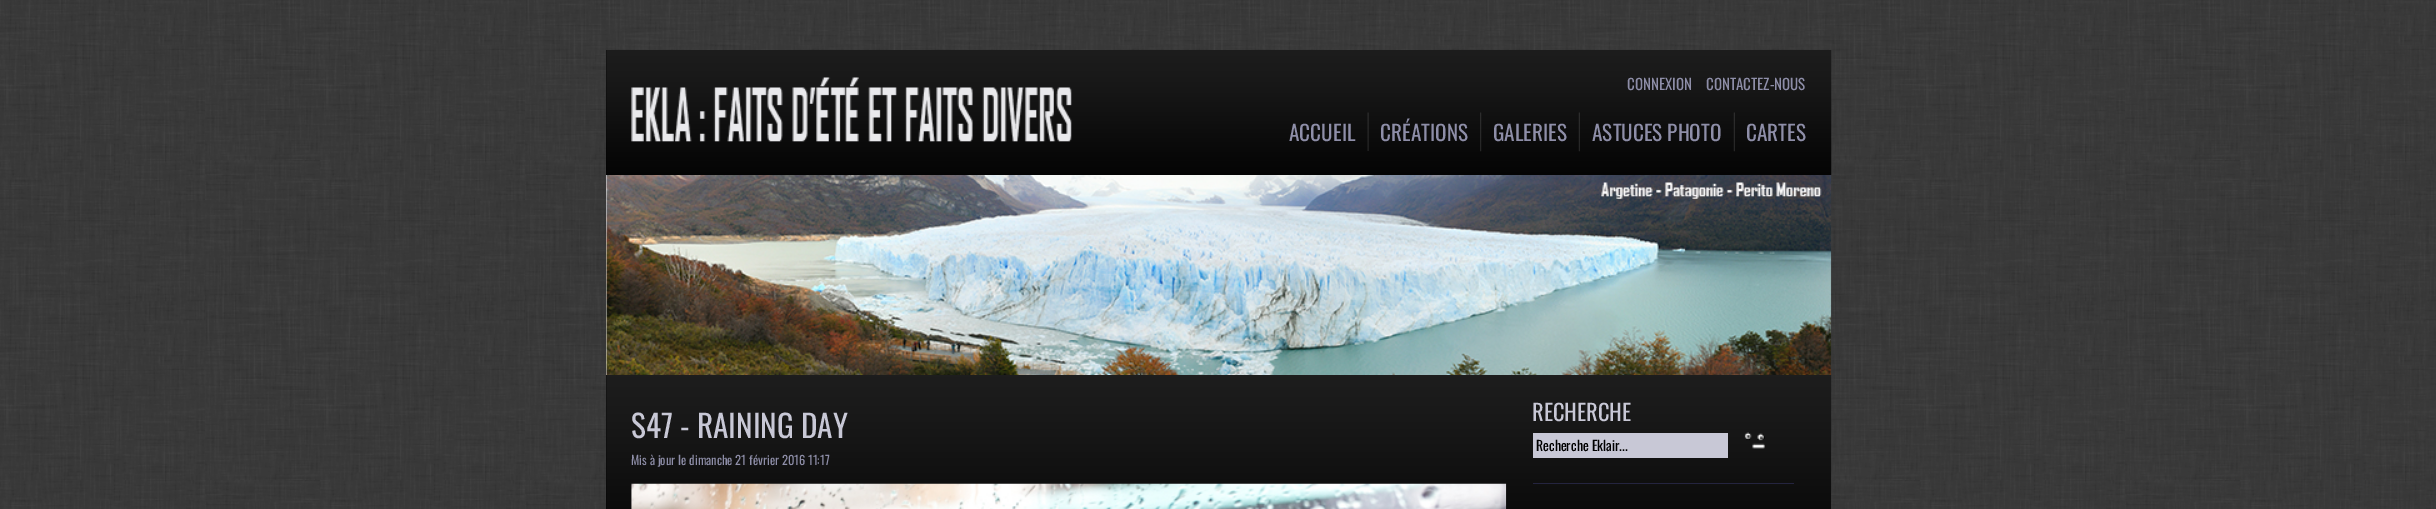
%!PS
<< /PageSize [2436 509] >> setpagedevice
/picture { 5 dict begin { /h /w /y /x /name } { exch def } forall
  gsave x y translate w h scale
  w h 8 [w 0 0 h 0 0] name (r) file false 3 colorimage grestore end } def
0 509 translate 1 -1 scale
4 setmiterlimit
1 setgray
0 0 2436 509 rectfill
(img1.rgb) 0 0 2436 509 picture
0 setgray
606 50 1225 459 rectfill
(img2.rgb) 606 50 1226 125 picture
(img3.rgb) 631 77 441 65 picture
/Oswald-Regular [15 0 0 -15 0 0] selectfont
0.557 0.557 0.659 setrgbcolor
1627 90 moveto (CONNEXION) show
1706 90 moveto (CONTACTEZ-NOUS) show
/Oswald-Regular [21.25 0 0 -21.25 0 0] selectfont
1289 141 moveto (ACCUEIL) show
(img4.rgb) 1367 112 2 39 picture
1380 141 moveto (CRÉATIONS) show
(img5.rgb) 1480 112 2 40 picture
1493 141 moveto (GALERIES) show
(img6.rgb) 1578 112 2 40 picture
1592 141 moveto (ASTUCES PHOTO) show
(img6.rgb) 1733 112 2 40 picture
1746 141 moveto (CARTES) show
1 setgray
606 175 1 200 rectfill
(img7.rgb) 606 175 1226 200 picture
(img8.rgb) 606 375 1226 134 picture
/Oswald-Regular [31.25 0 0 -31.25 0 0] selectfont
0.784 0.784 0.839 setrgbcolor
631 438 moveto (S47 - RAINING DAY) show
/Oswald-Regular [12.5 0 0 -12.5 0 0] selectfont
0.557 0.557 0.659 setrgbcolor
631 465 moveto (Mis à jour le dimanche 21 février 2016 11:17) show
(img9.rgb) 631 483 876 26 picture
0.141 0.141 0.247 setrgbcolor
1533 483 261 1 rectfill
/Oswald-Regular [22.5 0 0 -22.5 0 0] selectfont
0.784 0.784 0.839 setrgbcolor
1532 421 moveto (RECHERCHE) show
1533 433 195 25 rectfill
/Oswald-Regular [13.75 0 0 -13.75 0 0] selectfont
0 setgray
1536 451 moveto (Recherche Eklair...) show
(img10.rgb) 1744 432 21 17 picture
showpage
